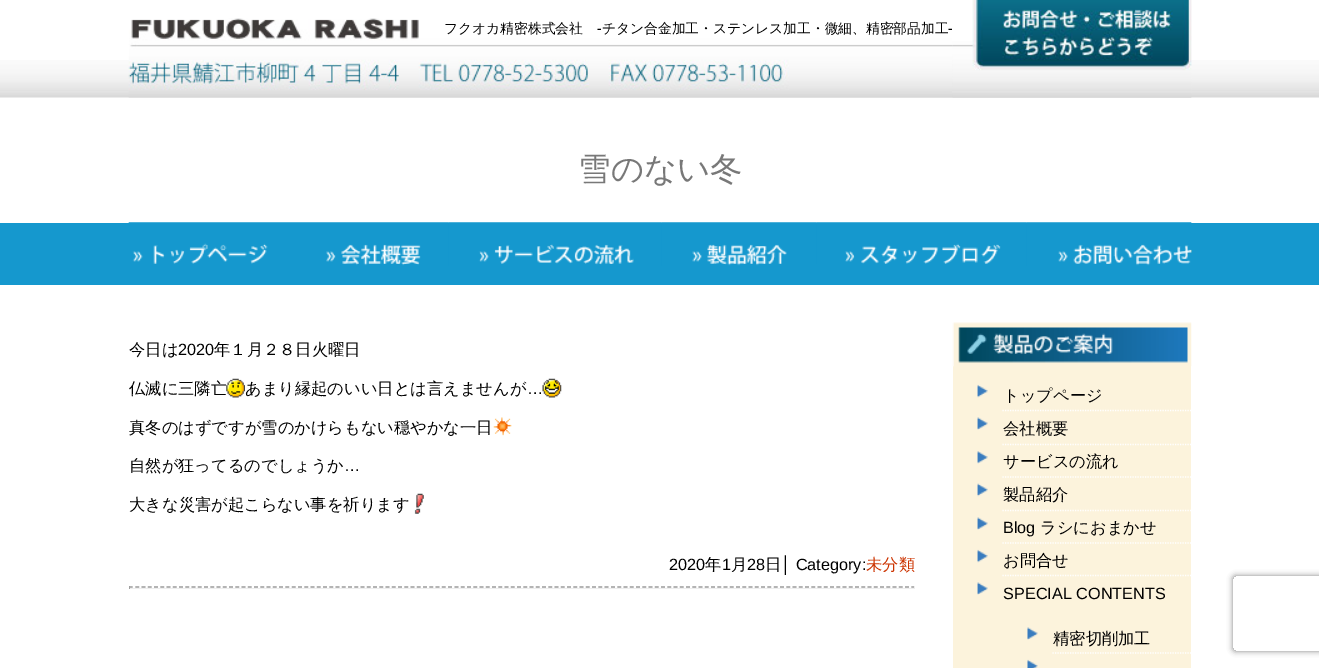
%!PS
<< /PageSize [1319 668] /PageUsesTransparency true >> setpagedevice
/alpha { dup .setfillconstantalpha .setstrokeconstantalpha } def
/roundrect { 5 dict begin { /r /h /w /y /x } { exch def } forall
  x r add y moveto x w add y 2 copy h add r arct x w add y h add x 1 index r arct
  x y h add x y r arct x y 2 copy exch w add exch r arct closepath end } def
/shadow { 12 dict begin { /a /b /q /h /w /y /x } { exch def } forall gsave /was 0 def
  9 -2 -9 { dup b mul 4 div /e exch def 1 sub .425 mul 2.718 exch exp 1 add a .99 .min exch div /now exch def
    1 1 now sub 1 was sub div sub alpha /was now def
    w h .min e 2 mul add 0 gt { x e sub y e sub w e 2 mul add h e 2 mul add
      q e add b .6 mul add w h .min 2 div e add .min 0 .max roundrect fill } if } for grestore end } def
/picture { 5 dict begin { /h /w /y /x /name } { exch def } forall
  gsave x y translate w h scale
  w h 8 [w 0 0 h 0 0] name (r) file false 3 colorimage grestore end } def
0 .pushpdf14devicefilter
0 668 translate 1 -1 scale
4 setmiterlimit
1 setgray
0 0 1319 668 rectfill
(img1.rgb) 0 60 1319 38 picture
(img2.rgb) 128 18 825 80 picture
/WenQuanYiZenHei-Medium [13.75 0 0 -13.75 0 0] selectfont
0 setgray
444 33 moveto (フクオカ精密株式会社) show
/LiberationSans-Regular [13.75 0 0 -13.75 0 0] selectfont
597 33 moveto (-) show
/WenQuanYiZenHei-Medium [13.75 0 0 -13.75 0 0] selectfont
602 33 moveto (チタン合金加工・ステンレス加工・微細、精密部品加工) show
/LiberationSans-Regular [13.75 0 0 -13.75 0 0] selectfont
948 33 moveto (-) show
(img3.rgb) 952 0 240 98 picture
(img4.rgb) 952 0 240 98 picture
/WenQuanYiZenHei-Medium [32.5 0 0 -32.5 0 0] selectfont
0.471 setgray
578 180 moveto (雪のない冬) show
0.082 0.596 0.808 setrgbcolor
0 223 1319 62 rectfill
(img5.rgb) 128 222 167 42 picture
(img6.rgb) 128 222 167 42 picture
(img7.rgb) 295 222 154 44 picture
(img8.rgb) 295 222 154 44 picture
(img9.rgb) 448 222 214 43 picture
(img10.rgb) 448 222 214 43 picture
(img11.rgb) 661 222 156 44 picture
(img12.rgb) 661 222 156 44 picture
(img13.rgb) 816 222 211 42 picture
(img14.rgb) 816 222 211 42 picture
(img15.rgb) 1026 222 166 44 picture
(img16.rgb) 1026 222 166 44 picture
/WenQuanYiZenHei-Medium [16.25 0 0 -16.25 0 0] selectfont
0 setgray
129 355 moveto (今日は) show
/LiberationSans-Regular [16.25 0 0 -16.25 0 0] selectfont
178 355 moveto (2020) show
/WenQuanYiZenHei-Medium [16.25 0 0 -16.25 0 0] selectfont
214 355 moveto (年１月２８日火曜日) show
129 394 moveto (仏滅に三隣亡) show
(img17.rgb) 226 378 19 20 picture
245 394 moveto (あまり縁起のいい日とは言えませんが) show
/LiberationSans-Regular [16.25 0 0 -16.25 0 0] selectfont
527 394 moveto (…) show
(img18.rgb) 542 378 20 20 picture
/WenQuanYiZenHei-Medium [16.25 0 0 -16.25 0 0] selectfont
129 433 moveto (真冬のはずですが雪のかけらもない穏やかな一日) show
(img19.rgb) 493 417 19 19 picture
129 471 moveto (自然が狂ってるのでしょうか) show
/LiberationSans-Regular [16.25 0 0 -16.25 0 0] selectfont
344 471 moveto (…) show
/WenQuanYiZenHei-Medium [16.25 0 0 -16.25 0 0] selectfont
129 510 moveto (大きな災害が起こらない事を祈ります) show
(img20.rgb) 414 493 10 21 picture
/LiberationSans-Regular [16.25 0 0 -16.25 0 0] selectfont
669 570 moveto (2020) show
/WenQuanYiZenHei-Medium [16.25 0 0 -16.25 0 0] selectfont
705 570 moveto (年) show
/LiberationSans-Regular [16.25 0 0 -16.25 0 0] selectfont
722 570 moveto (1) show
/WenQuanYiZenHei-Medium [16.25 0 0 -16.25 0 0] selectfont
731 570 moveto (月) show
/LiberationSans-Regular [16.25 0 0 -16.25 0 0] selectfont
747 570 moveto (28) show
/WenQuanYiZenHei-Medium [16.25 0 0 -16.25 0 0] selectfont
765 570 moveto (日) show
/LiberationSans-Regular [16.25 0 0 -16.25 0 0] selectfont
781 570 moveto (│ Category:) show
/WenQuanYiZenHei-Medium [16.25 0 0 -16.25 0 0] selectfont
0.8 0.2 0 setrgbcolor
866 570 moveto (未分類) show
0.6 setgray
1.2 setlinewidth
[3.75 2.51] 0 setdash
newpath 129 587 moveto 915 587 lineto stroke
0.933 setgray
914 586 1 3 rectfill
129 588 786 1 rectfill
0.624 setgray
129 586 1 3 rectfill
0.988 0.953 0.863 setrgbcolor
953 366 238 302 rectfill
(img21.rgb) 952 322 240 45 picture
1 setgray
[1.25 1.25] 0 setdash
newpath 1002.5 410.5 moveto 1191 410.5 lineto stroke
(img22.rgb) 977 384 11 14 picture
0 setgray
1003 401 moveto (トップページ) show
1 setgray
newpath 1002.5 444.5 moveto 1191 444.5 lineto stroke
(img23.rgb) 977 417 11 13 picture
0 setgray
1003 434 moveto (会社概要) show
1 setgray
newpath 1002.5 477 moveto 1191 477 lineto stroke
(img24.rgb) 977 451 11 13 picture
0 setgray
1003 467 moveto (サービスの流れ) show
1 setgray
newpath 1002.5 510.5 moveto 1191 510.5 lineto stroke
(img25.rgb) 977 483 11 14 picture
0 setgray
1003 500 moveto (製品紹介) show
1 setgray
newpath 1002.5 543 moveto 1191 543 lineto stroke
(img23.rgb) 977 517 11 13 picture
/LiberationSans-Regular [16.25 0 0 -16.25 0 0] selectfont
0 setgray
1003 533 moveto (Blog) show
/WenQuanYiZenHei-Medium [16.25 0 0 -16.25 0 0] selectfont
1040 533 moveto (ラシにおまかせ) show
1 setgray
newpath 1002.5 575.5 moveto 1191 575.5 lineto stroke
(img22.rgb) 977 549 11 14 picture
0 setgray
1003 566 moveto (お問合せ) show
(img26.rgb) 977 582 11 13 picture
/LiberationSans-Regular [16.25 0 0 -16.25 0 0] selectfont
1003 599 moveto (SPECIAL CONTENTS) show
1 setgray
newpath 1052.5 653 moveto 1191 653 lineto stroke
(img27.rgb) 1027 627 11 13 picture
/WenQuanYiZenHei-Medium [16.25 0 0 -16.25 0 0] selectfont
0 setgray
1053 644 moveto (精密切削加工) show
(img28.rgb) 1027 659 11 9 picture
gsave
newpath 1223 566 moveto 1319 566 lineto 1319 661 lineto 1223 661 lineto closepath 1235.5 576 moveto 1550.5 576 lineto 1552 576 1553 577 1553 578.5 curveto 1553 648.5 lineto 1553 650 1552 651 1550.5 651 curveto 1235.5 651 lineto 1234 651 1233 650 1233 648.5 curveto 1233 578.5 lineto 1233 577 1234 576 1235.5 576 curveto closepath eoclip newpath
0.502 setgray
1233 576 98 75 2.5 3 1 shadow
grestore
.poppdf14devicefilter showpage
